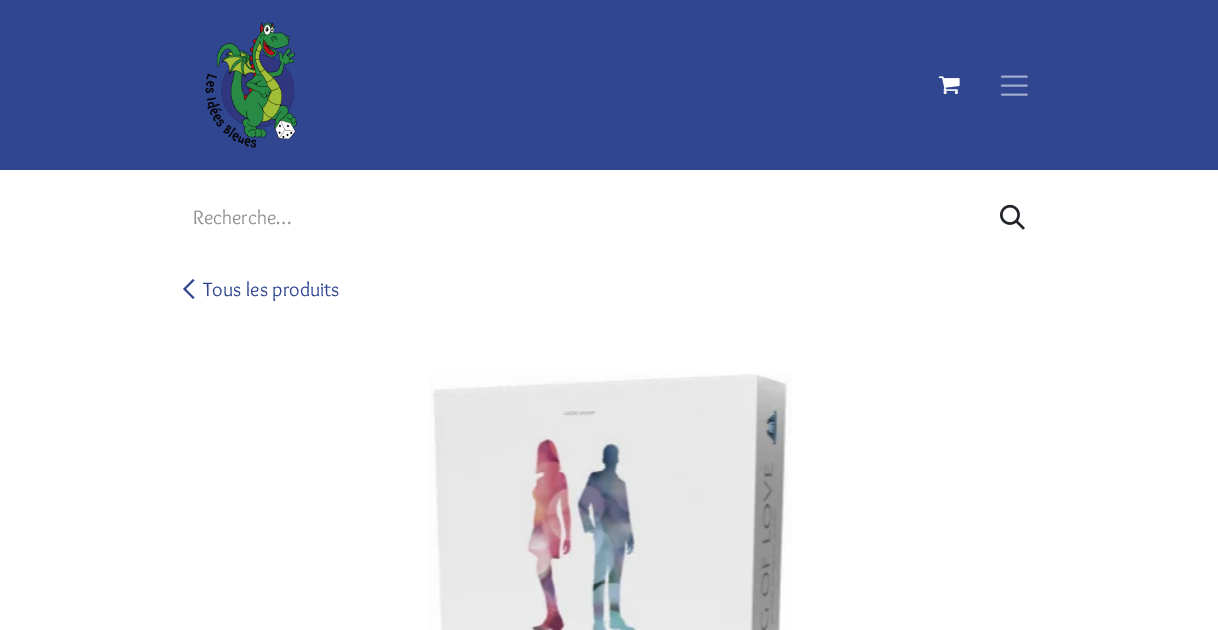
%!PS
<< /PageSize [1218 630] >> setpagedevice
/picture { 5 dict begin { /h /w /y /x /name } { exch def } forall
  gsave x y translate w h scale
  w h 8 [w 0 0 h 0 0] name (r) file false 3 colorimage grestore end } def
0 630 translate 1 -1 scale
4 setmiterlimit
1 setgray
0 0 1218 630 rectfill
0.188 0.275 0.569 setrgbcolor
0 0 1218 170 rectfill
(img1.rgb) 205 22 92 126 picture
(img2.rgb) 938 76 22 19 picture
(img3.rgb) 1000 75 28 21 picture
/Overlock-Regular [20 0 0 -20 0 0] selectfont
0.565 0.573 0.58 setrgbcolor
193 224 moveto (Recherche…) show
(img4.rgb) 1000 204 25 26 picture
0.188 0.275 0.569 setrgbcolor
newpath 183 289 moveto 193 279 lineto 194.5 280.5 lineto 186 289 lineto 194.5 297.5 lineto 193 299 lineto closepath fill
203 296 moveto (Tous les produits) show
(img5.rgb) 430 372 362 258 picture
showpage
